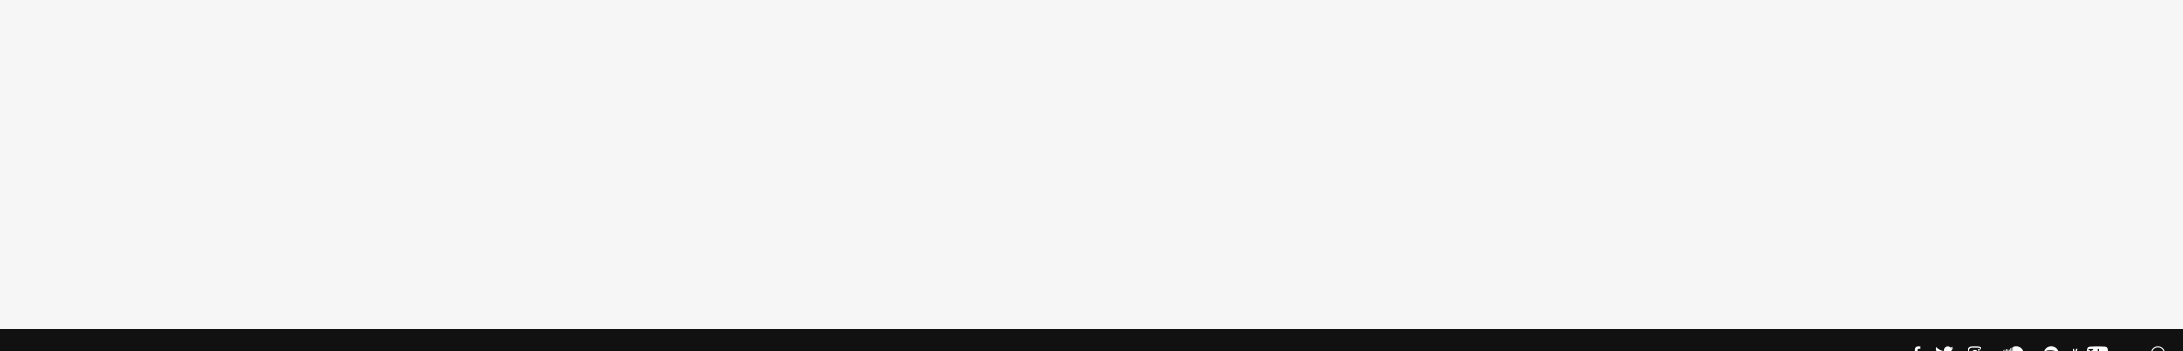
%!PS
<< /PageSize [2183 351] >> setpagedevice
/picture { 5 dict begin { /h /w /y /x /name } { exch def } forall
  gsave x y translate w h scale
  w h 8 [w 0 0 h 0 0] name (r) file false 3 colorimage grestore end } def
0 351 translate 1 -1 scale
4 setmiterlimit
0.965 setgray
0 0 2183 351 rectfill
0.067 setgray
0 329 2183 22 rectfill
(img1.rgb) 1914 346 7 5 picture
(img2.rgb) 1935 346 19 5 picture
(img3.rgb) 1968 346 13 5 picture
(img4.rgb) 2003 346 20 5 picture
(img5.rgb) 2044 346 15 5 picture
(img6.rgb) 2073 346 35 5 picture
(img7.rgb) 2151 346 14 5 picture
showpage
